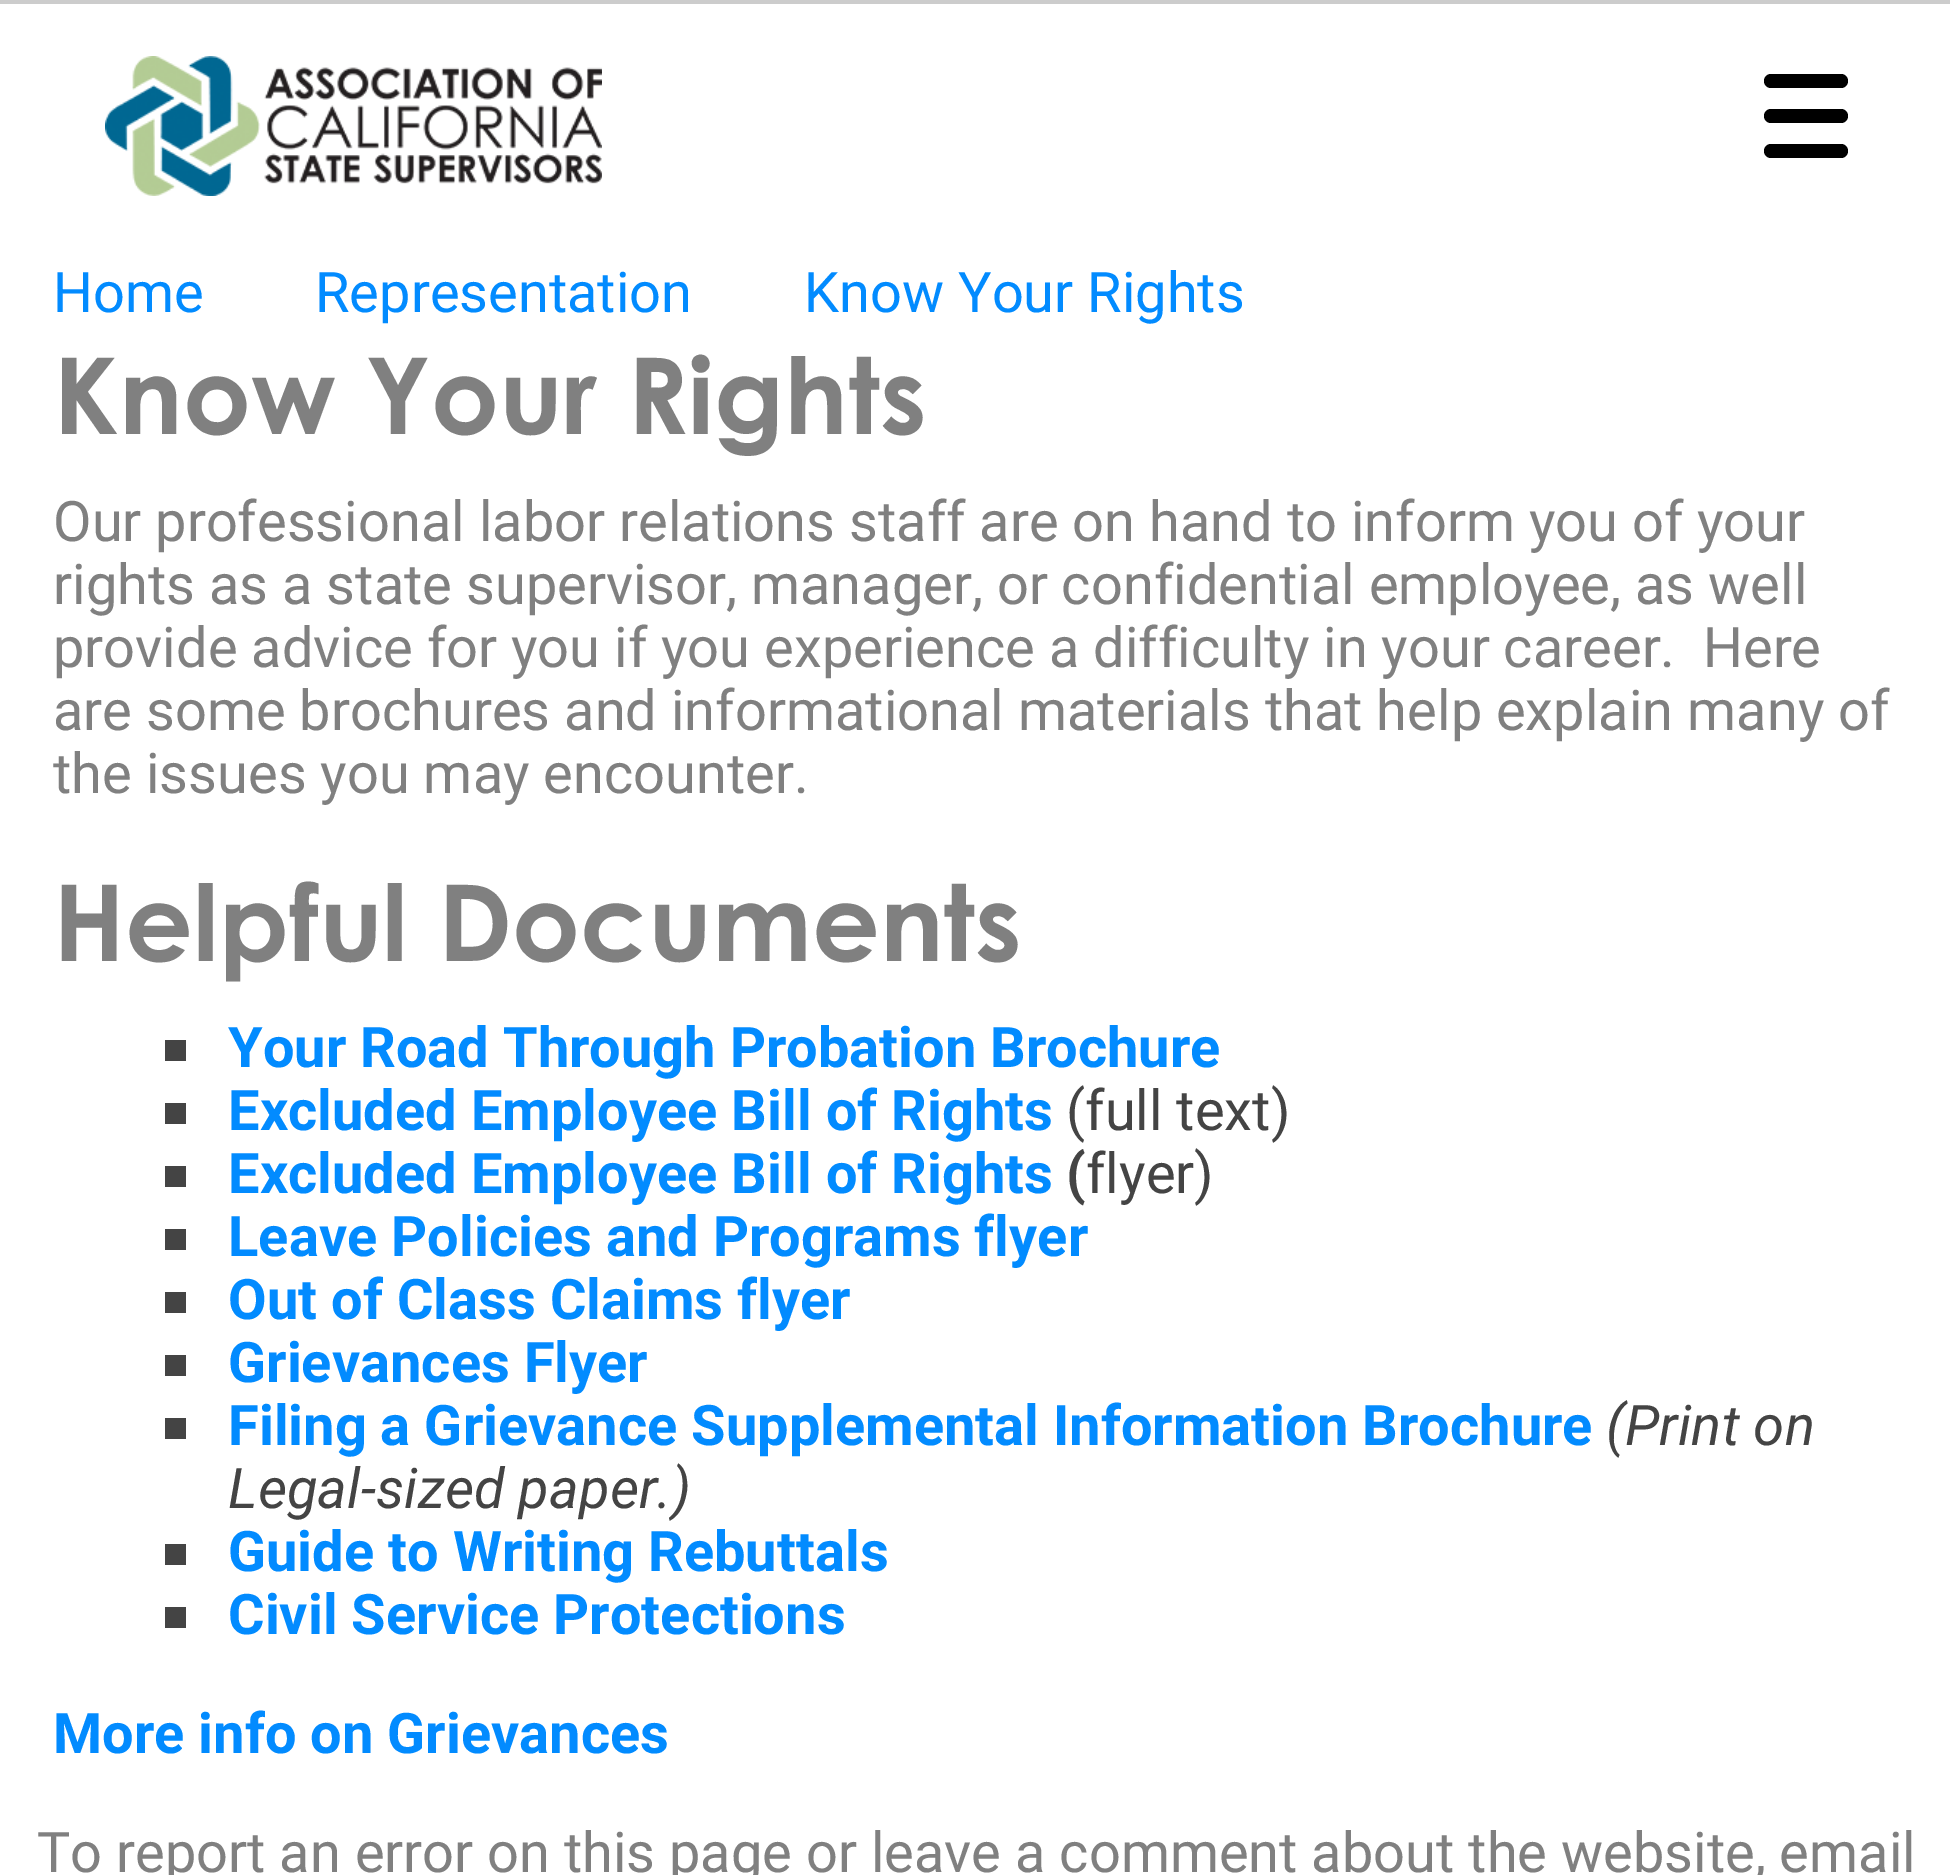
%!PS
<< /PageSize [1950 1875] >> setpagedevice
/roundrect { 5 dict begin { /r /h /w /y /x } { exch def } forall
  x r add y moveto x w add y 2 copy h add r arct x w add y h add x 1 index r arct
  x y h add x y r arct x y 2 copy exch w add exch r arct closepath end } def
/picture { 5 dict begin { /h /w /y /x /name } { exch def } forall
  gsave x y translate w h scale
  w h 8 [w 0 0 h 0 0] name (r) file false 3 colorimage grestore end } def
0 1875 translate 1 -1 scale
4 setmiterlimit
1 setgray
0 0 1950 1875 rectfill
0.8 setgray
0 0 1950 4 rectfill
(img1.rgb) 105 56 497 140 picture
0 setgray
1764 109 84 14 7 roundrect fill
1764 74 84 14 7 roundrect fill
1764 144 84 14 7 roundrect fill
/Roboto-Regular [56 0 0 -56 0 0] selectfont
0.008 0.545 1 setrgbcolor
53 312 moveto (Home) show
315 312 moveto (Representation) show
804 312 moveto (Know Your Rights) show
/CenturyGothic-Bold [106.25 0 0 -106.25 0 0] selectfont
0.502 setgray
53 434 moveto (Know Your Rights) show
/Roboto-Regular [56 0 0 -56 0 0] selectfont
53 541 moveto (Our professional labor relations staff are on hand to inform you of your) show
53 604 moveto (rights as a state supervisor, manager, or confidential employee, as well) show
53 667 moveto (provide advice for you if you experience a difficulty in your career.  Here) show
53 730 moveto (are some brochures and informational materials that help explain many of) show
53 793 moveto (the issues you may encounter.) show
/CenturyGothic-Bold [106.25 0 0 -106.25 0 0] selectfont
53 961 moveto (Helpful Documents) show
0.267 setgray
165 1040 21 21 rectfill
/Roboto-Bold [56 0 0 -56 0 0] selectfont
0.008 0.545 1 setrgbcolor
228 1067 moveto (Your Road Through Probation Brochure) show
0.267 setgray
165 1103 21 21 rectfill
0.008 0.545 1 setrgbcolor
228 1130 moveto (Excluded Employee Bill of Rights) show
/Roboto-Regular [56 0 0 -56 0 0] selectfont
0.267 setgray
1066 1130 moveto (\(full text\)) show
165 1166 21 21 rectfill
/Roboto-Bold [56 0 0 -56 0 0] selectfont
0.008 0.545 1 setrgbcolor
228 1193 moveto (Excluded Employee Bill of Rights) show
0.267 setgray
1066 1193 moveto (\() show
/Roboto-Regular [56 0 0 -56 0 0] selectfont
1086 1193 moveto (flyer\)) show
165 1229 21 21 rectfill
/Roboto-Bold [56 0 0 -56 0 0] selectfont
0.008 0.545 1 setrgbcolor
228 1256 moveto (Leave Policies and Programs flyer) show
0.267 setgray
165 1292 21 21 rectfill
0.008 0.545 1 setrgbcolor
228 1319 moveto (Out of Class Claims flyer) show
0.267 setgray
165 1355 21 21 rectfill
0.008 0.545 1 setrgbcolor
228 1382 moveto (Grievances Flyer) show
0.267 setgray
165 1418 21 21 rectfill
0.008 0.545 1 setrgbcolor
228 1445 moveto (Filing a Grievance Supplemental Information Brochure) show
/Roboto-Italic [56 0 0 -56 0 0] selectfont
0.267 setgray
1606 1445 moveto (\(Print on) show
228 1508 moveto (Legal-sized paper.\)) show
165 1544 21 21 rectfill
/Roboto-Bold [56 0 0 -56 0 0] selectfont
0.008 0.545 1 setrgbcolor
228 1571 moveto (Guide to Writing Rebuttals) show
0.267 setgray
165 1607 21 21 rectfill
0.008 0.545 1 setrgbcolor
228 1634 moveto (Civil Service Protections) show
53 1753 moveto (More info on Grievances) show
/Roboto-Regular [56 0 0 -56 0 0] selectfont
0.502 setgray
37 1872 moveto (To report an error on this page or leave a comment about the website, email) show
showpage
